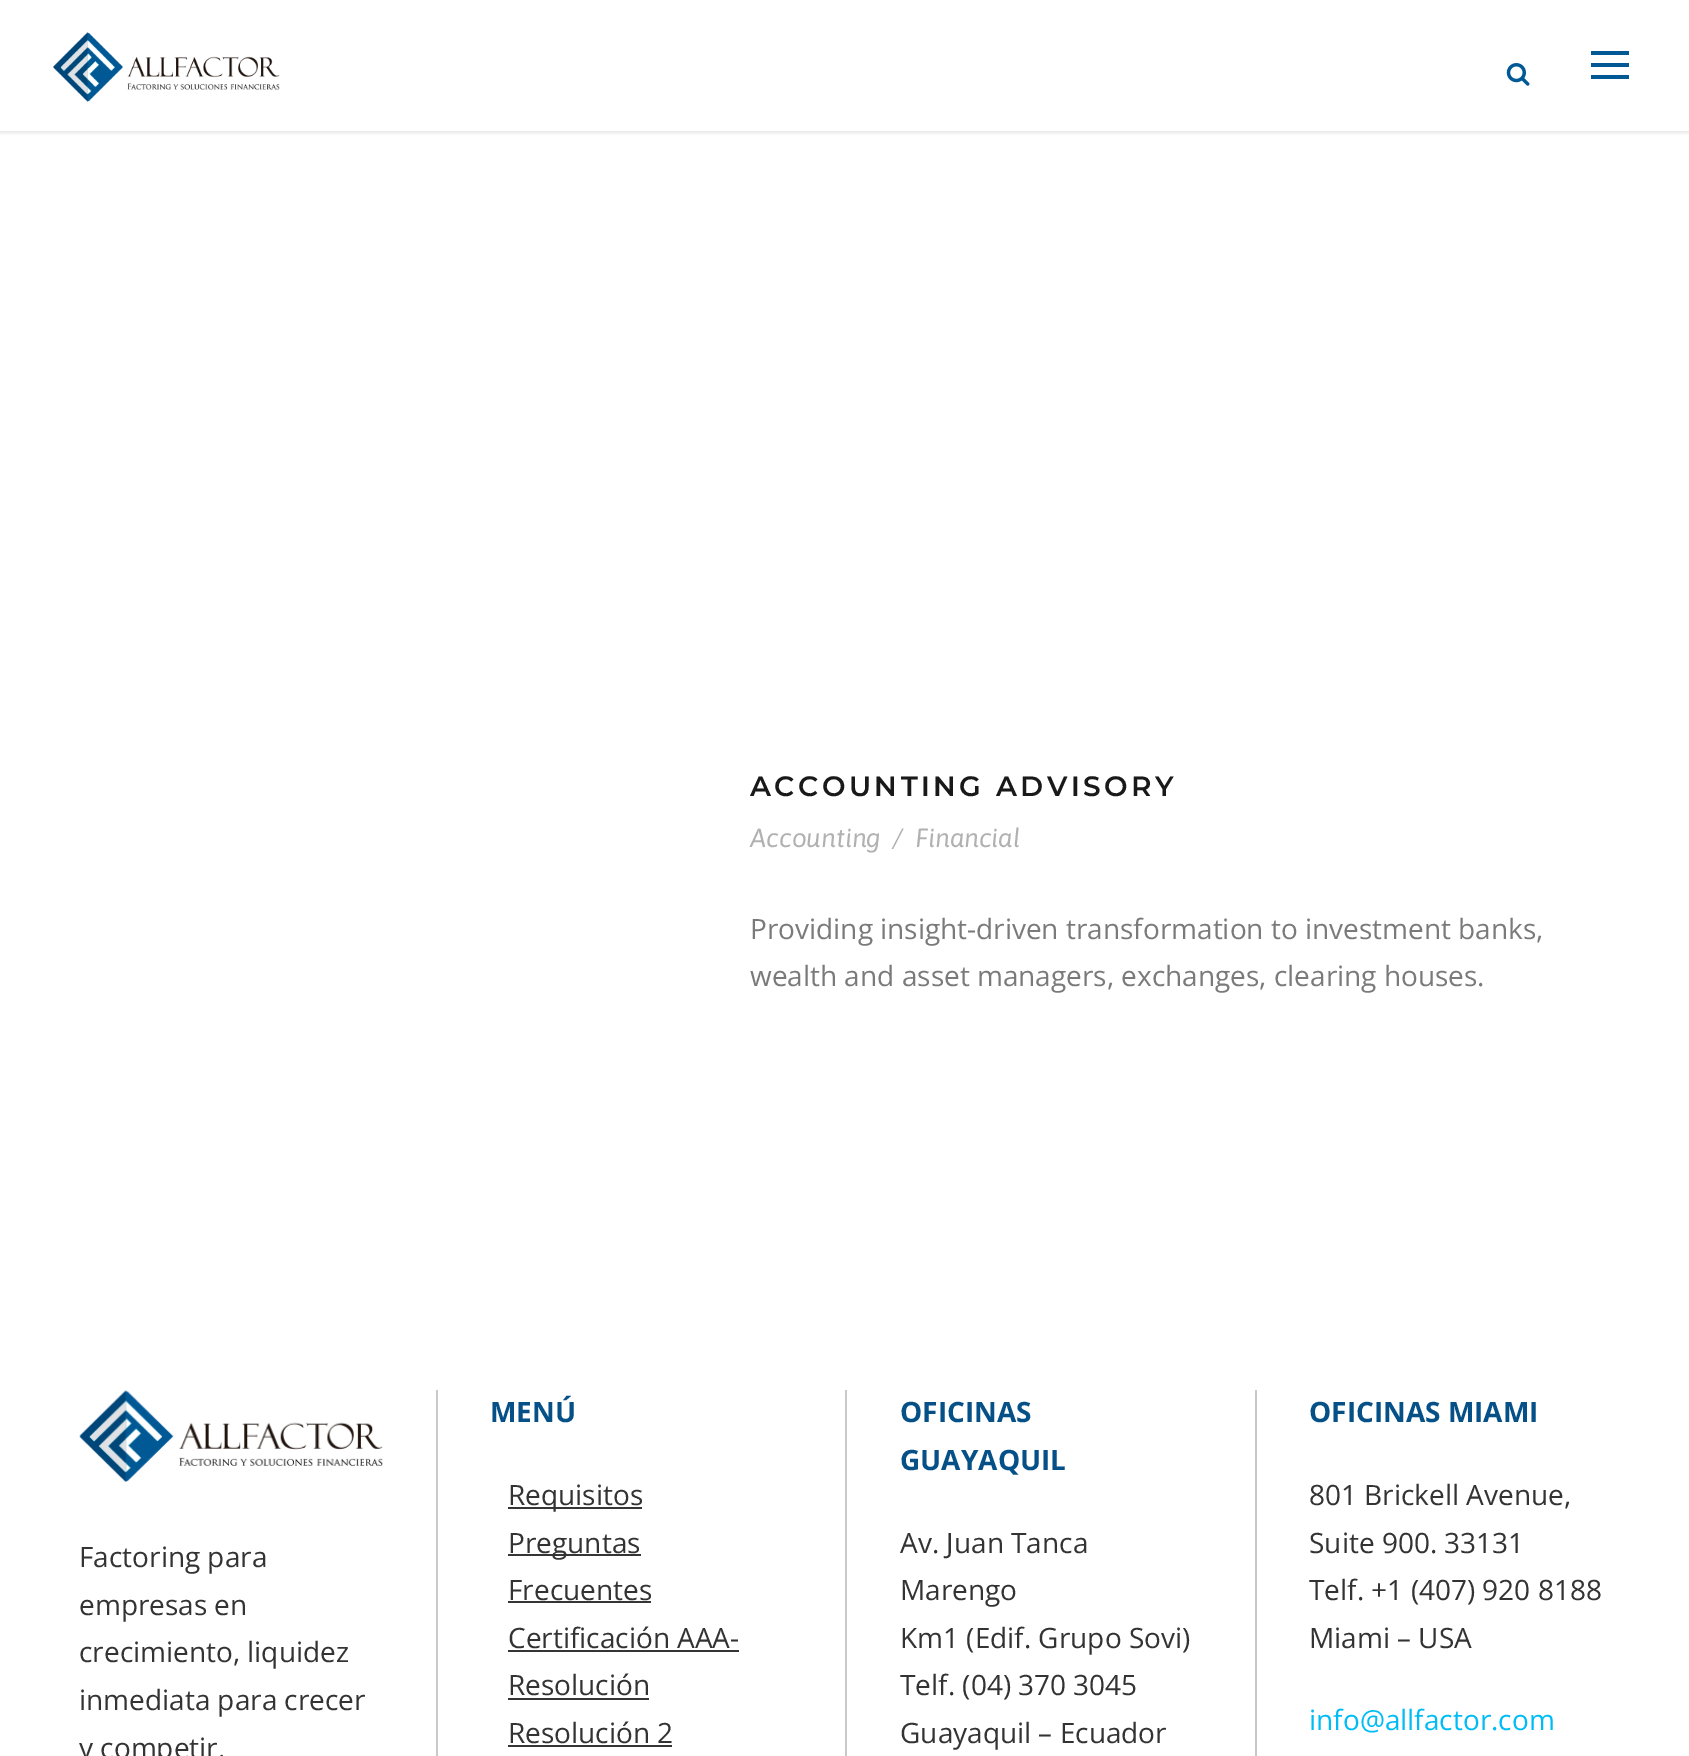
%!PS
<< /PageSize [1689 1756] /PageUsesTransparency true >> setpagedevice
/alpha { dup .setfillconstantalpha .setstrokeconstantalpha } def
/roundrect { 5 dict begin { /r /h /w /y /x } { exch def } forall
  x r add y moveto x w add y 2 copy h add r arct x w add y h add x 1 index r arct
  x y h add x y r arct x y 2 copy exch w add exch r arct closepath end } def
/shadow { 12 dict begin { /a /b /q /h /w /y /x } { exch def } forall gsave /was 0 def
  9 -2 -9 { dup b mul 4 div /e exch def 1 sub .425 mul 2.718 exch exp 1 add a .99 .min exch div /now exch def
    1 1 now sub 1 was sub div sub alpha /was now def
    w h .min e 2 mul add 0 gt { x e sub y e sub w e 2 mul add h e 2 mul add
      q e add b .6 mul add w h .min 2 div e add .min 0 .max roundrect fill } if } for grestore end } def
/picture { 5 dict begin { /h /w /y /x /name } { exch def } forall
  gsave x y translate w h scale
  w h 8 [w 0 0 h 0 0] name (r) file false 3 colorimage grestore end } def
0 .pushpdf14devicefilter
0 1756 translate 1 -1 scale
4 setmiterlimit
1 setgray
0 0 1689 1756 rectfill
gsave
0 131 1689 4 rectclip
0 setgray
0 2 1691 131 0 2 0.1 shadow
grestore
(img1.rgb) 53 32 227 70 picture
(img2.rgb) 1506 63 24 23 picture
0 0.345 0.584 setrgbcolor
1591 51 38 4 rectfill
1591 63 38 4 rectfill
1591 75 38 4 rectfill
/Montserrat-SemiBold [28 0 0 -28 0 0] selectfont
0.098 setgray
750 796 moveto 3.5 0 (ACCOUNTING ADVISORY) ashow
/Asap-Italic [26.25 0 0 -26.25 0 0] selectfont
0.694 setgray
750 847 moveto (Accounting) show
892 847 moveto (/) show
915 847 moveto (Financial) show
/OpenSans-Regular [28 0 0 -28 0 0] selectfont
0.478 setgray
750 939 moveto (Providing insight-driven transformation to investment banks,) show
750 986 moveto (wealth and asset managers, exchanges, clearing houses.) show
(img3.rgb) 79 1390 304 92 picture
0.2 setgray
79 1567 moveto (Factoring para) show
79 1615 moveto (empresas en) show
79 1662 moveto (crecimiento, liquidez) show
79 1710 moveto (inmediata para crecer) show
79 1758 moveto (y competir.) show
0.788 setgray
436 1390 2 366 rectfill
/OpenSans-Bold [28 0 0 -28 0 0] selectfont
0.024 0.314 0.533 setrgbcolor
490 1422 moveto (MENÚ) show
0.208 setgray
508 1507 134 2 rectfill
/OpenSans-Regular [28 0 0 -28 0 0] selectfont
0.2 setgray
508 1505 moveto (Requisitos) show
0.208 setgray
508 1554 133 2 rectfill
0.2 setgray
508 1553 moveto (Preguntas) show
508 1600 moveto (Frecuentes) show
0.208 setgray
508 1601 143 2 rectfill
0.2 setgray
508 1648 moveto (Certificación AAA-) show
0.208 setgray
508 1650 231 2 rectfill
0.2 setgray
508 1695 moveto (Resolución) show
0.208 setgray
508 1698 141 2 rectfill
0.2 setgray
508 1743 moveto (Resolución 2) show
0.208 setgray
508 1745 164 2 rectfill
0.788 setgray
845 1390 2 366 rectfill
/OpenSans-Bold [28 0 0 -28 0 0] selectfont
0.024 0.314 0.533 setrgbcolor
900 1422 moveto (OFICINAS) show
900 1470 moveto (GUAYAQUIL) show
/OpenSans-Regular [28 0 0 -28 0 0] selectfont
0.2 setgray
900 1553 moveto (Av. Juan Tanca) show
900 1600 moveto (Marengo) show
900 1648 moveto (Km1 \(Edif. Grupo Sovi\)) show
900 1695 moveto (Telf. \(04\) 370 3045) show
900 1743 moveto (Guayaquil – Ecuador) show
0.788 setgray
1255 1390 2 366 rectfill
/OpenSans-Bold [28 0 0 -28 0 0] selectfont
0.024 0.314 0.533 setrgbcolor
1309 1422 moveto (OFICINAS MIAMI) show
/OpenSans-Regular [28 0 0 -28 0 0] selectfont
0.2 setgray
1309 1505 moveto (801 Brickell Avenue,) show
1309 1553 moveto (Suite 900. 33131) show
1309 1600 moveto (Telf. +1 \(407\) 920 8188) show
1309 1648 moveto (Miami – USA) show
0 0.737 0.957 setrgbcolor
1309 1730 moveto (info@allfactor.com) show
.poppdf14devicefilter showpage
